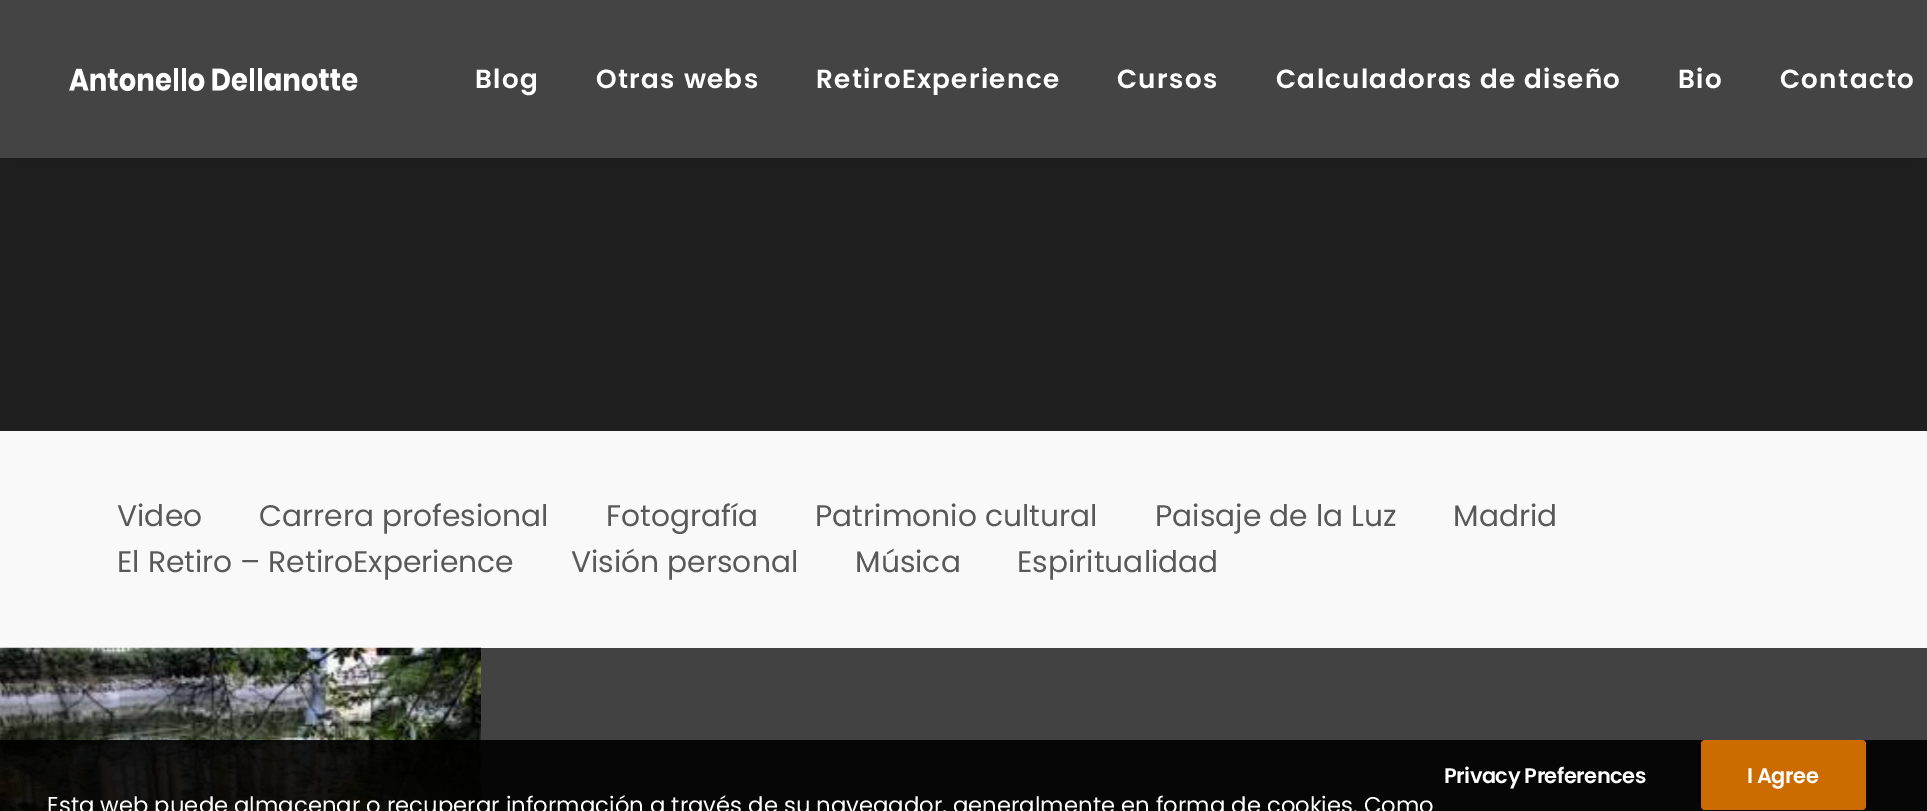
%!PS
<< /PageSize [1927 811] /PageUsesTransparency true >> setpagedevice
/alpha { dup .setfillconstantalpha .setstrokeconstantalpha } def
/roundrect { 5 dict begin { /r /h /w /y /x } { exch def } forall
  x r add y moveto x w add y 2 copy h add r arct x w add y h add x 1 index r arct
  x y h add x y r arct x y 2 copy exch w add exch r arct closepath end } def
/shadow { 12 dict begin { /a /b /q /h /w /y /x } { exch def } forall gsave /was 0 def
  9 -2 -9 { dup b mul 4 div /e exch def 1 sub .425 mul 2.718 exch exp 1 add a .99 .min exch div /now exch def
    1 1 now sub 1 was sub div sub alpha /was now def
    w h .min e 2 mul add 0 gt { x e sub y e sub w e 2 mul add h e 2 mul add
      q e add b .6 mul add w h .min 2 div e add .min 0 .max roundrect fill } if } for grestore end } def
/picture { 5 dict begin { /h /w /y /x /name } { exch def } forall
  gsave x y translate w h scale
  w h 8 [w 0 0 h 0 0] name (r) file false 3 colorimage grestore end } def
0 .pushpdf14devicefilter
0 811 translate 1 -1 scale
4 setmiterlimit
0.122 setgray
0 0 1927 811 rectfill
0 setgray
16 25 1897 122 0 9 0.6 shadow
0.267 setgray
0 0 1927 158 rectfill
(img1.rgb) 69 68 289 24 picture
/Poppins-SemiBold [26.25 0 0 -26.25 0 0] selectfont
1 setgray
475 88 moveto 1.3 0 (Blog) ashow
596 88 moveto 1.3 0 (Otras webs) ashow
816 88 moveto 1.3 0 (RetiroExperience) ashow
1117 88 moveto 1.3 0 (Cursos) ashow
1276 88 moveto 1.3 0 (Calculadoras de diseño) ashow
1678 88 moveto 1.3 0 (Bio) ashow
1780 88 moveto 1.3 0 (Contacto) ashow
0.976 setgray
0 431 1927 217 rectfill
/Poppins-Regular [29.75 0 0 -29.75 0 0] selectfont
0.349 setgray
117 526 moveto (Video) show
259 526 moveto (Carrera profesional) show
606 526 moveto (Fotografía) show
815 526 moveto (Patrimonio cultural) show
1155 526 moveto (Paisaje de la Luz) show
1453 526 moveto (Madrid) show
117 572 moveto (El Retiro – RetiroExperience) show
571 572 moveto (Visión personal) show
855 572 moveto (Música) show
1017 572 moveto (Espiritualidad) show
0.259 setgray
481 648 1446 163 rectfill
(img2.rgb) 0 647 481 164 picture
0.9 alpha
0 setgray
0 740 1927 71 rectfill
/Poppins-SemiBold [21 0 0 -21 0 0] selectfont
1 alpha
1 setgray
1444 783 moveto -0.5 0 (Privacy Preferences) ashow
0.8 0.424 0 setrgbcolor
1701 740 165 70 4 roundrect fill
1 setgray
1747 783 moveto -0.5 0 (I Agree) ashow
/Poppins-Regular [22.75 0 0 -22.75 0 0] selectfont
47 813 moveto (Esta web puede almacenar o recuperar información a través de su navegador, generalmente en forma de cookies. Como) show
.poppdf14devicefilter showpage
